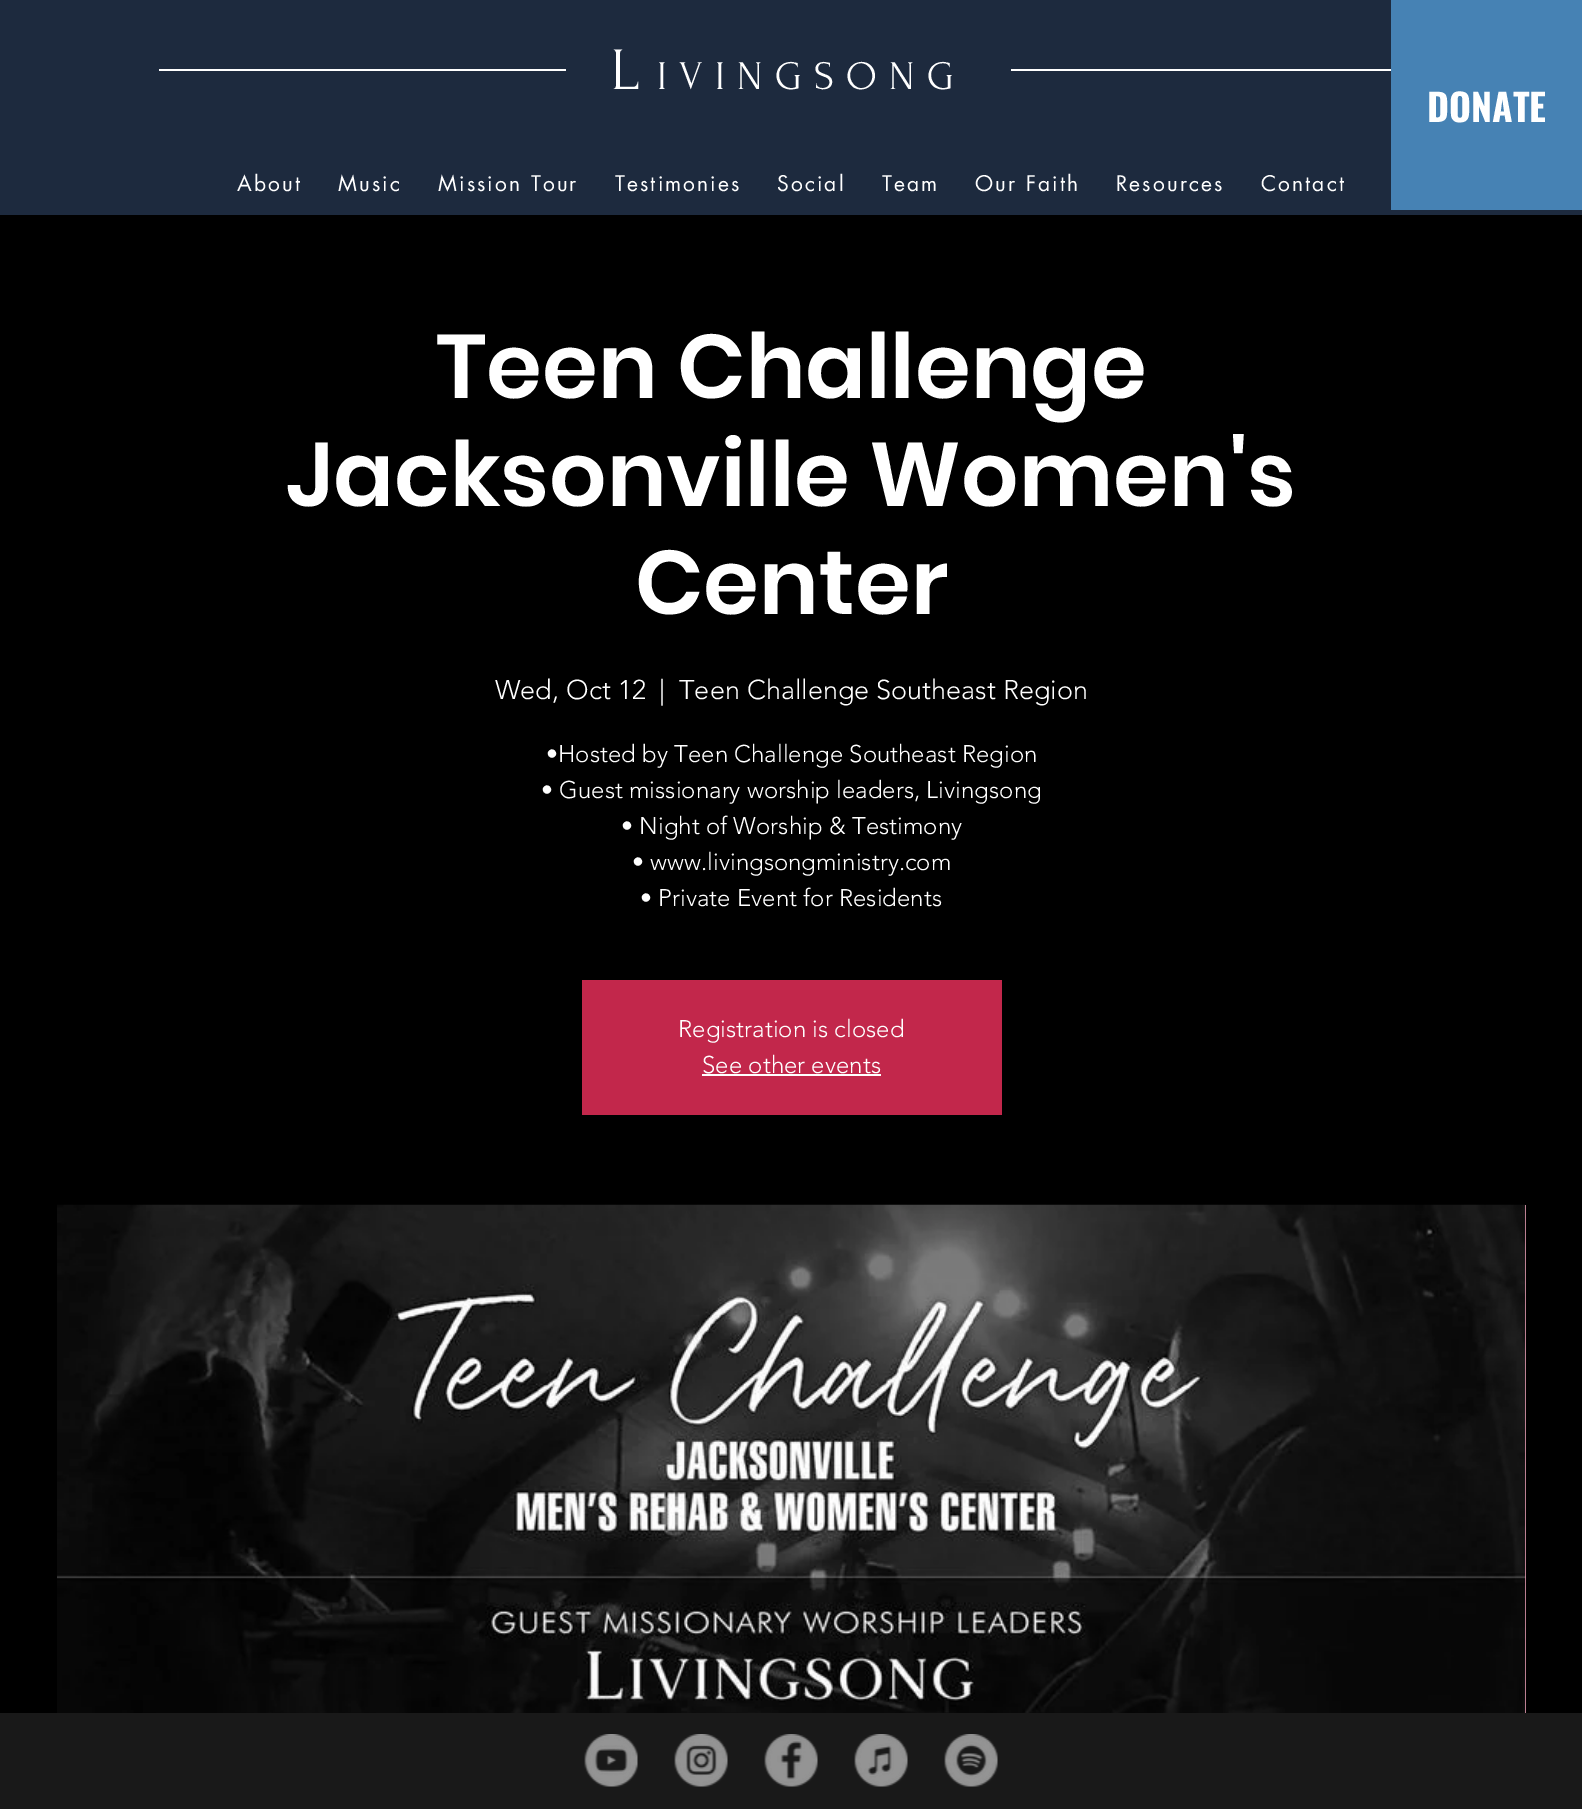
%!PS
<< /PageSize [1582 1809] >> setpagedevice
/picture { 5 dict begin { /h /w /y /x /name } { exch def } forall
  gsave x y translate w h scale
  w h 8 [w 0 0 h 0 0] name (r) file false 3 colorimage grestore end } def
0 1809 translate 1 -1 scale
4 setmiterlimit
0 setgray
0 0 1582 1809 rectfill
0.114 0.165 0.243 setrgbcolor
0 0 1582 215 rectfill
1 setgray
159 69 407 2 rectfill
/Forum-Regular [60 0 0 -60 0 0] selectfont
611 89 moveto 18 0 (L) ashow
/Forum-Regular [40.5 0 0 -40.5 0 0] selectfont
657 89 moveto 12.25 0 (IVINGSONG) ashow
1011 69 380 2 rectfill
/futura-Regular [21 0 0 -21 0 0] selectfont
237 191 moveto 2.1 0 (About) ashow
338 191 moveto 2.1 0 (Music) ashow
438 191 moveto 2.1 0 (Mission Tour) ashow
615 191 moveto 2.1 0 (Testimonies) ashow
777 191 moveto 2.1 0 (Social) ashow
882 191 moveto 2.1 0 (Team) ashow
975 191 moveto 2.1 0 (Our Faith) ashow
1116 191 moveto 2.1 0 (Resources) ashow
1261 191 moveto 2.1 0 (Contact) ashow
0.275 0.51 0.706 setrgbcolor
1391 0 191 210 rectfill
/Oswald-Bold [37.5 0 0 -37.5 0 0] selectfont
1 setgray
1427 122 moveto (DONATE) show
/Poppins-SemiBold [90 0 0 -90 0 0] selectfont
436 398 moveto (Teen Challenge) show
286 506 moveto (Jacksonville Women's) show
635 614 moveto (Center) show
/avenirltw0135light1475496-Light [27 0 0 -27 0 0] selectfont
495 699 moveto (Wed, Oct 12) show
659 699 moveto (|) show
679 699 moveto (Teen Challenge Southeast Region) show
/avenirltw0135light1475496-Light [24 0 0 -24 0 0] selectfont
546 762 moveto (•Hosted by Teen Challenge Southeast Region) show
541 798 moveto (• Guest missionary worship leaders, Livingsong) show
621 834 moveto (• Night of Worship & Testimony) show
632 870 moveto (• www.livingsongministry.com) show
640 906 moveto (• Private Event for Residents) show
0.761 0.153 0.294 setrgbcolor
582 980 420 135 rectfill
1 setgray
678 1037 moveto (Registration is closed) show
702 1073 moveto (See other events) show
702 1074 179 2 rectfill
0.961 0.651 0.741 setrgbcolor
1525 1205 1 508 rectfill
(img1.rgb) 57 1204 1469 509 picture
0.098 setgray
0 1713 1582 96 rectfill
(img2.rgb) 584 1734 54 53 picture
(img3.rgb) 674 1734 54 53 picture
(img4.rgb) 764 1734 54 53 picture
(img5.rgb) 854 1734 54 53 picture
(img6.rgb) 944 1734 54 53 picture
showpage
